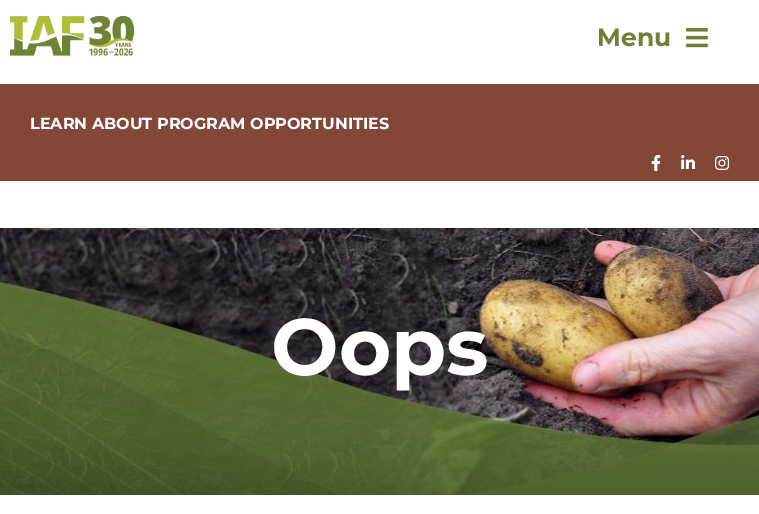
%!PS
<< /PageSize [759 514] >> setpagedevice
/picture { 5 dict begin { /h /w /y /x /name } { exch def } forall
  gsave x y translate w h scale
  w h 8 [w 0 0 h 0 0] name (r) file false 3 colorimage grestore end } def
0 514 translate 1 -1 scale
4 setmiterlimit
1 setgray
0 0 759 514 rectfill
(img1.rgb) 10 16 125 41 picture
/Montserrat-Thin [25 0 0 -25 0 0] selectfont
0.427 0.51 0.216 setrgbcolor
597 46 moveto (Menu) show
(img2.rgb) 686 28 22 20 picture
0.51 0.278 0.216 setrgbcolor
0 84 759 97 rectfill
/Montserrat-Thin [16 0 0 -16 0 0] selectfont
1 setgray
30 129 moveto (LEARN ABOUT PROGRAM OPPORTUNITIES) show
(img3.rgb) 651 155 10 16 picture
(img4.rgb) 681 155 14 14 picture
(img5.rgb) 715 156 15 14 picture
(img6.rgb) 0 228 759 267 picture
/Montserrat-Thin [80 0 0 -80 0 0] selectfont
271 375 moveto (Oops) show
showpage
